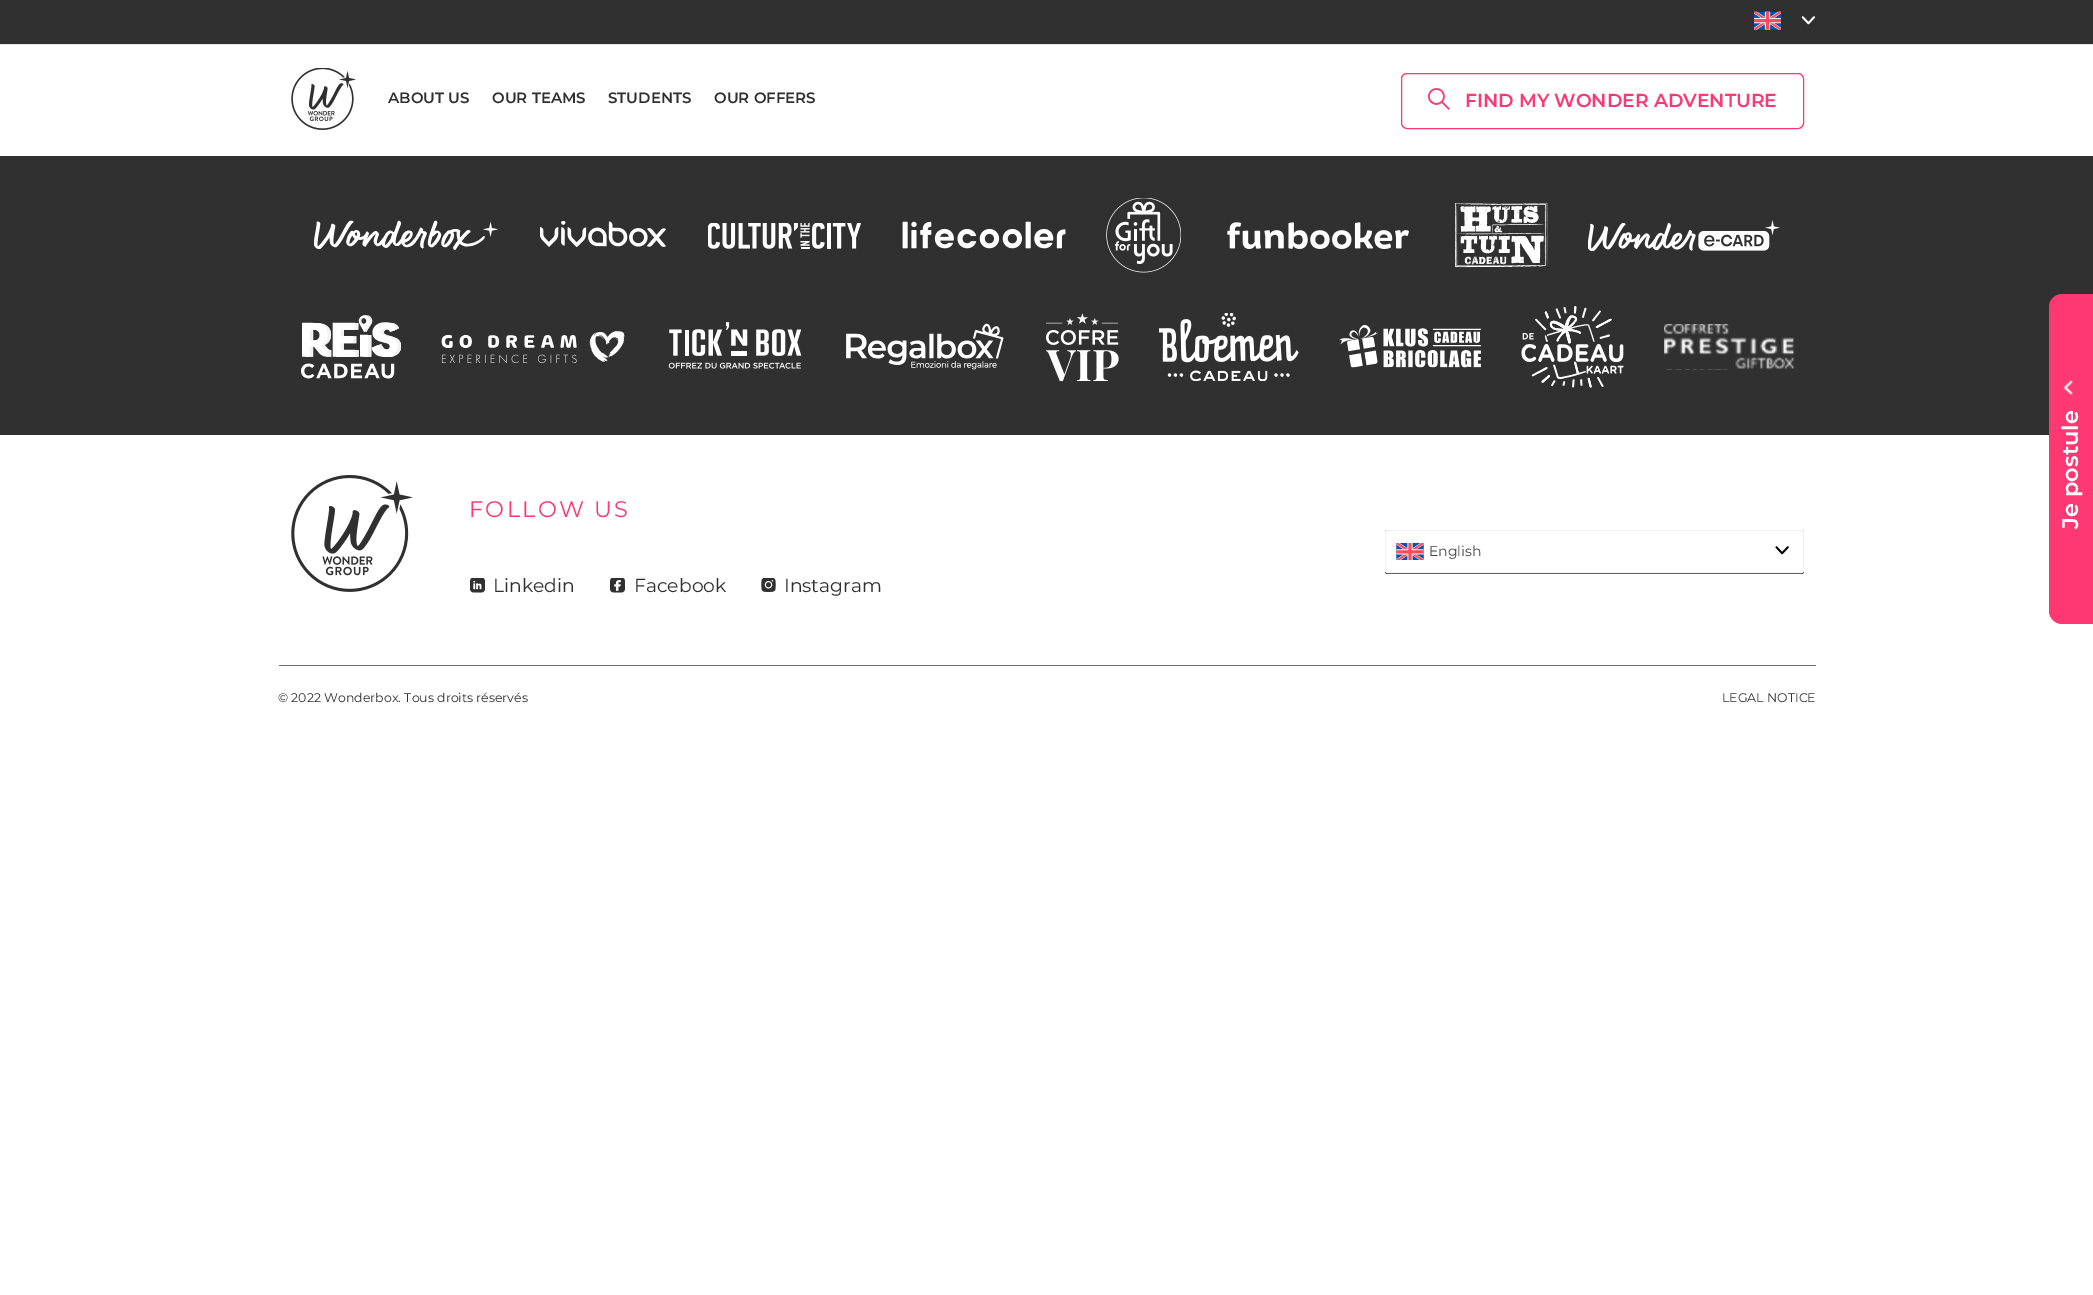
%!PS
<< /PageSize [2093 1295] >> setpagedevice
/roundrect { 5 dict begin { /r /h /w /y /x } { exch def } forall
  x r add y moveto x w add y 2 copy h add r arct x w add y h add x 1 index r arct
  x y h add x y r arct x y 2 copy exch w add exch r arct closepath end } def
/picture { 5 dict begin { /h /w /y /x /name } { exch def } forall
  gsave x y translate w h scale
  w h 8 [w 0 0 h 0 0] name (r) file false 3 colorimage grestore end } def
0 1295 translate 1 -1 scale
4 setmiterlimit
1 setgray
0 0 2093 1295 rectfill
0.188 setgray
0 0 2093 44 rectfill
(img1.rgb) 1754 11 27 19 picture
(img2.rgb) 1801 16 14 9 picture
0.898 setgray
0 44 2093 1 rectfill
(img3.rgb) 291 68 65 62 picture
/Montserrat-SemiBold [15 0 0 -15 0 0] selectfont
0.188 setgray
388 103 moveto (ABOUT US) show
492 103 moveto (OUR TEAMS) show
608 103 moveto (STUDENTS) show
714 103 moveto (OUR OFFERS) show
0.996 0.22 0.451 setrgbcolor
1401.5 73.5 402 55 5.5 roundrect stroke
(img4.rgb) 1428 88 22 22 picture
/Montserrat-SemiBold [18.75 0 0 -18.75 0 0] selectfont
1465 107 moveto (FIND MY WONDER ADVENTURE) show
0.188 setgray
0 156 2093 279 rectfill
0.996 0.22 0.451 setrgbcolor
newpath 2062 294 moveto 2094 294 lineto 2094 624 lineto 2062 624 lineto 2055 624 2049 618 2049 611 curveto 2049 307 lineto 2049 300 2055 294 2062 294 curveto closepath fill
(img5.rgb) 2063 380 10 15 picture
/Montserrat-SemiBold [22.5 0 0 -22.5 0 0] selectfont
1 setgray
gsave 2078 529 translate -90 rotate 0 0 moveto (Je postule) show grestore
(img6.rgb) 314 220 184 30 picture
(img7.rgb) 540 221 126 26 picture
(img8.rgb) 708 223 153 26 picture
(img9.rgb) 902 221 164 28 picture
(img10.rgb) 1106 198 75 75 picture
(img11.rgb) 1227 222 182 27 picture
(img12.rgb) 1455 203 93 65 picture
(img13.rgb) 1588 220 192 31 picture
(img14.rgb) 301 315 100 64 picture
(img15.rgb) 441 330 184 34 picture
(img16.rgb) 668 322 134 47 picture
(img17.rgb) 846 323 158 47 picture
(img18.rgb) 1046 313 73 69 picture
(img19.rgb) 1159 313 140 68 picture
(img20.rgb) 1339 325 142 43 picture
(img21.rgb) 1521 306 103 82 picture
(img22.rgb) 1664 324 131 46 picture
(img23.rgb) 291 475 122 117 picture
/Montserrat-Regular [22.5 0 0 -22.5 0 0] selectfont
0.996 0.22 0.451 setrgbcolor
469 517 moveto 2.25 0 (FOLLOW US) ashow
(img24.rgb) 470 578 15 15 picture
/Montserrat-Regular [18.75 0 0 -18.75 0 0] selectfont
0.188 setgray
493 592 moveto (Linkedin) show
(img25.rgb) 610 578 15 15 picture
634 592 moveto (Facebook) show
(img26.rgb) 761 578 15 14 picture
784 592 moveto (Instagram) show
1385 530 419 44 2.5 roundrect fill
1 setgray
1385.5 530.5 418 42 2 roundrect gsave fill grestore
0.957 setgray
stroke
(img27.rgb) 1396 543 28 17 picture
/Montserrat-Regular [14 0 0 -14 0 0] selectfont
0.267 setgray
1429 556 moveto (English) show
(img28.rgb) 1775 546 14 9 picture
0.427 setgray
279 665 1537 1 rectfill
/Montserrat-Regular [12.5 0 0 -12.5 0 0] selectfont
0.188 setgray
278 702 moveto (© 2022 Wonderbox. Tous droits réservés) show
1722 702 moveto (LEGAL NOTICE) show
showpage
